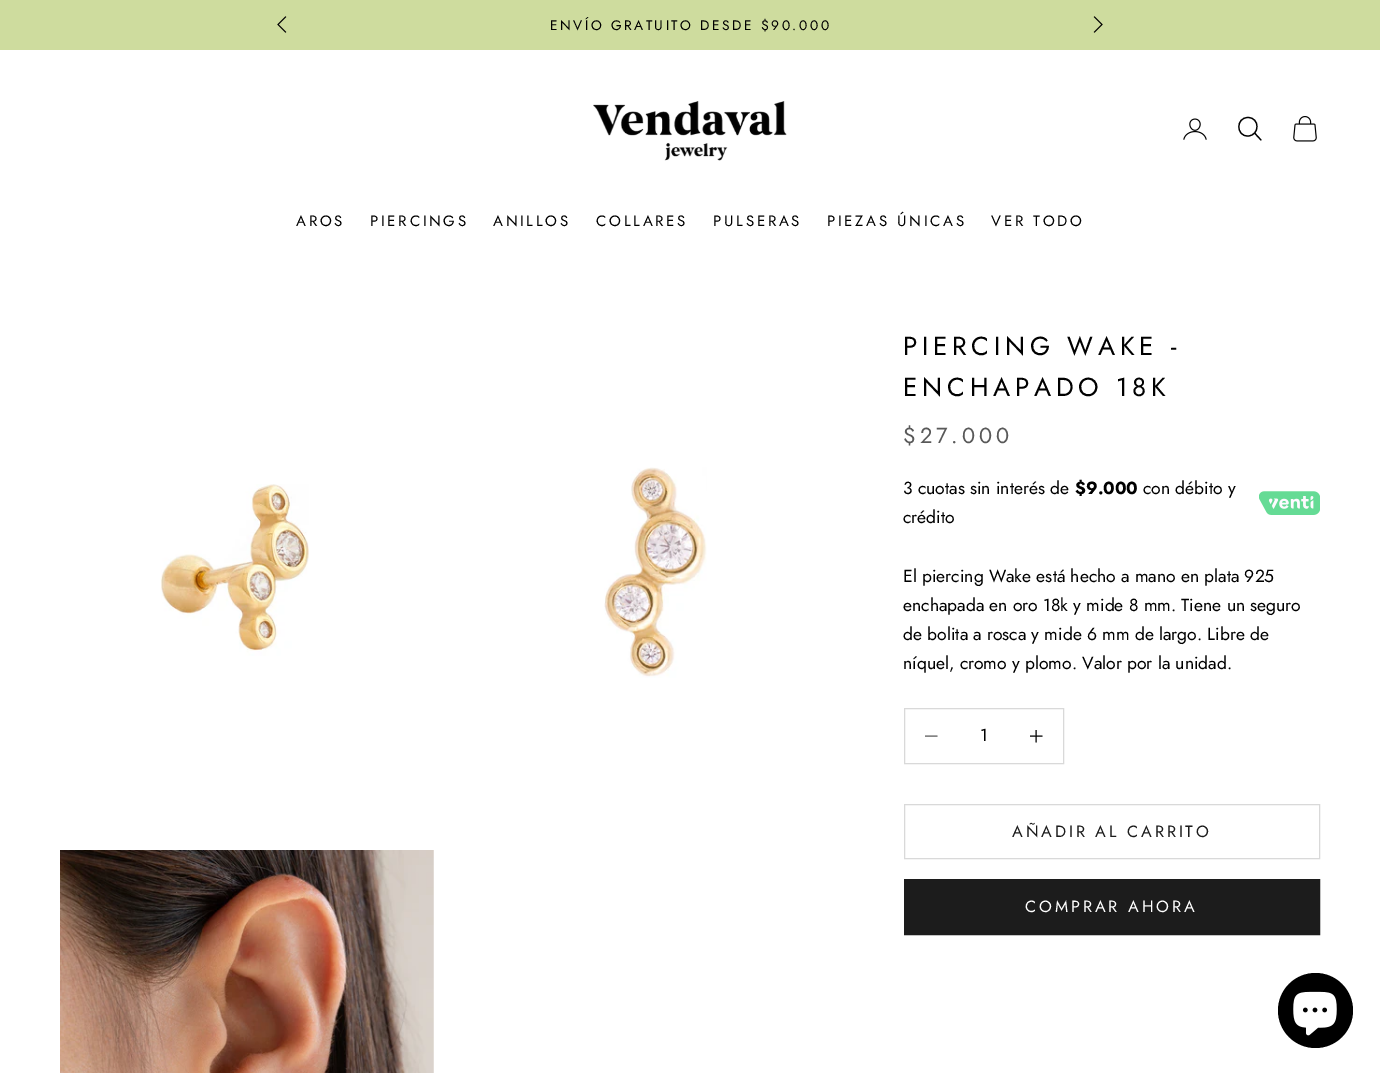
%!PS
<< /PageSize [1380 1073] >> setpagedevice
/picture { 5 dict begin { /h /w /y /x /name } { exch def } forall
  gsave x y translate w h scale
  w h 8 [w 0 0 h 0 0] name (r) file false 3 colorimage grestore end } def
0 1073 translate 1 -1 scale
4 setmiterlimit
1 setgray
0 0 1380 1073 rectfill
0.808 0.863 0.62 setrgbcolor
0 0 1380 50 rectfill
0 setgray
0.9 setlinewidth
2 setlinecap
newpath 285.5 17 moveto 278 24.5 lineto 285.5 32 lineto stroke
/Jost-Regular [13.75 0 0 -13.75 0 0] selectfont
550 30 moveto 2.5 0 (ENVÍO GRATUITO DESDE $90.000) ashow
newpath 1094.5 32 moveto 1102 24.5 lineto 1094.5 17 lineto stroke
(img1.rgb) 593 101 194 60 picture
(img2.rgb) 1183 118 24 22 picture
1.2 setlinewidth
0 setlinecap
newpath 1248 117.5 moveto 1235.5 117.5 1236 136.5 1248 136 curveto 1260 135.5 1260 117.5 1248 117.5 curveto closepath stroke
1 setlinecap
newpath 1255 133.5 moveto 1261 140 lineto stroke
(img3.rgb) 1293 116 24 26 picture
/Jost-Regular [15 0 0 -15 0 0] selectfont
296 226 moveto 2.75 0 (AROS) ashow
370 226 moveto 2.75 0 (PIERCINGS) ashow
493 226 moveto 2.75 0 (ANILLOS) ashow
596 226 moveto 2.75 0 (COLLARES) ashow
713 226 moveto 2.75 0 (PULSERAS) ashow
827 226 moveto 2.75 0 (PIEZAS ÚNICAS) ashow
991 226 moveto 2.75 0 (VER TODO) ashow
(img4.rgb) 160 484 149 172 picture
(img5.rgb) 604 467 103 211 picture
(img6.rgb) 60 850 374 223 picture
/Jost-Regular [26 0 0 -26 0 0] selectfont
903 355 moveto 4.75 0 (PIERCING WAKE -) ashow
903 396 moveto 4.75 0 (ENCHAPADO 18K) ashow
/Jost-Regular [21.75 0 0 -21.75 0 0] selectfont
0.349 setgray
903 443 moveto 4 0 ($27.000) ashow
/Jost-Regular [17.5 0 0 -17.5 0 0] selectfont
0 setgray
903 494 moveto (3 cuotas sin interés de) show
/Jost-Bold [17.5 0 0 -17.5 0 0] selectfont
1075 494 moveto ($9.000) show
/Jost-Regular [17.5 0 0 -17.5 0 0] selectfont
1143 494 moveto (con débito y) show
903 523 moveto (crédito) show
(img7.rgb) 1259 491 61 24 picture
903 582 moveto (El piercing Wake está hecho a mano en plata 925) show
903 611 moveto (enchapada en oro 18k y mide 8 mm. Tiene un seguro) show
903 640 moveto (de bolita a rosca y mide 6 mm de largo. Libre de) show
903 669 moveto (níquel, cromo y plomo. Valor por la unidad.) show
0.851 setgray
1 setlinewidth
0 setlinecap
904.5 708.5 159 55 rectstroke
0.349 setgray
newpath 925 736 moveto 937.5 736 lineto stroke
0 setgray
980 741 moveto (1) show
newpath 1036 730 moveto 1036 742.5 lineto 1030 736 moveto 1042.5 736 lineto stroke
0.851 setgray
904.5 804.5 415 54 rectstroke
/Jost-Regular [16.25 0 0 -16.25 0 0] selectfont
0.11 setgray
1012 837 moveto 2.9 0 (AÑADIR AL CARRITO) ashow
newpath 904.5 879.5 moveto 1319.5 879.5 lineto 1319.5 934.5 lineto 904.5 934.5 lineto closepath gsave fill grestore
stroke
1 setgray
1025 912 moveto 2.9 0 (COMPRAR AHORA) ashow
0 setgray
newpath 1315.5 1010.5 37.5 0 360 arc closepath fill
(img8.rgb) 1293 991 44 45 picture
showpage
